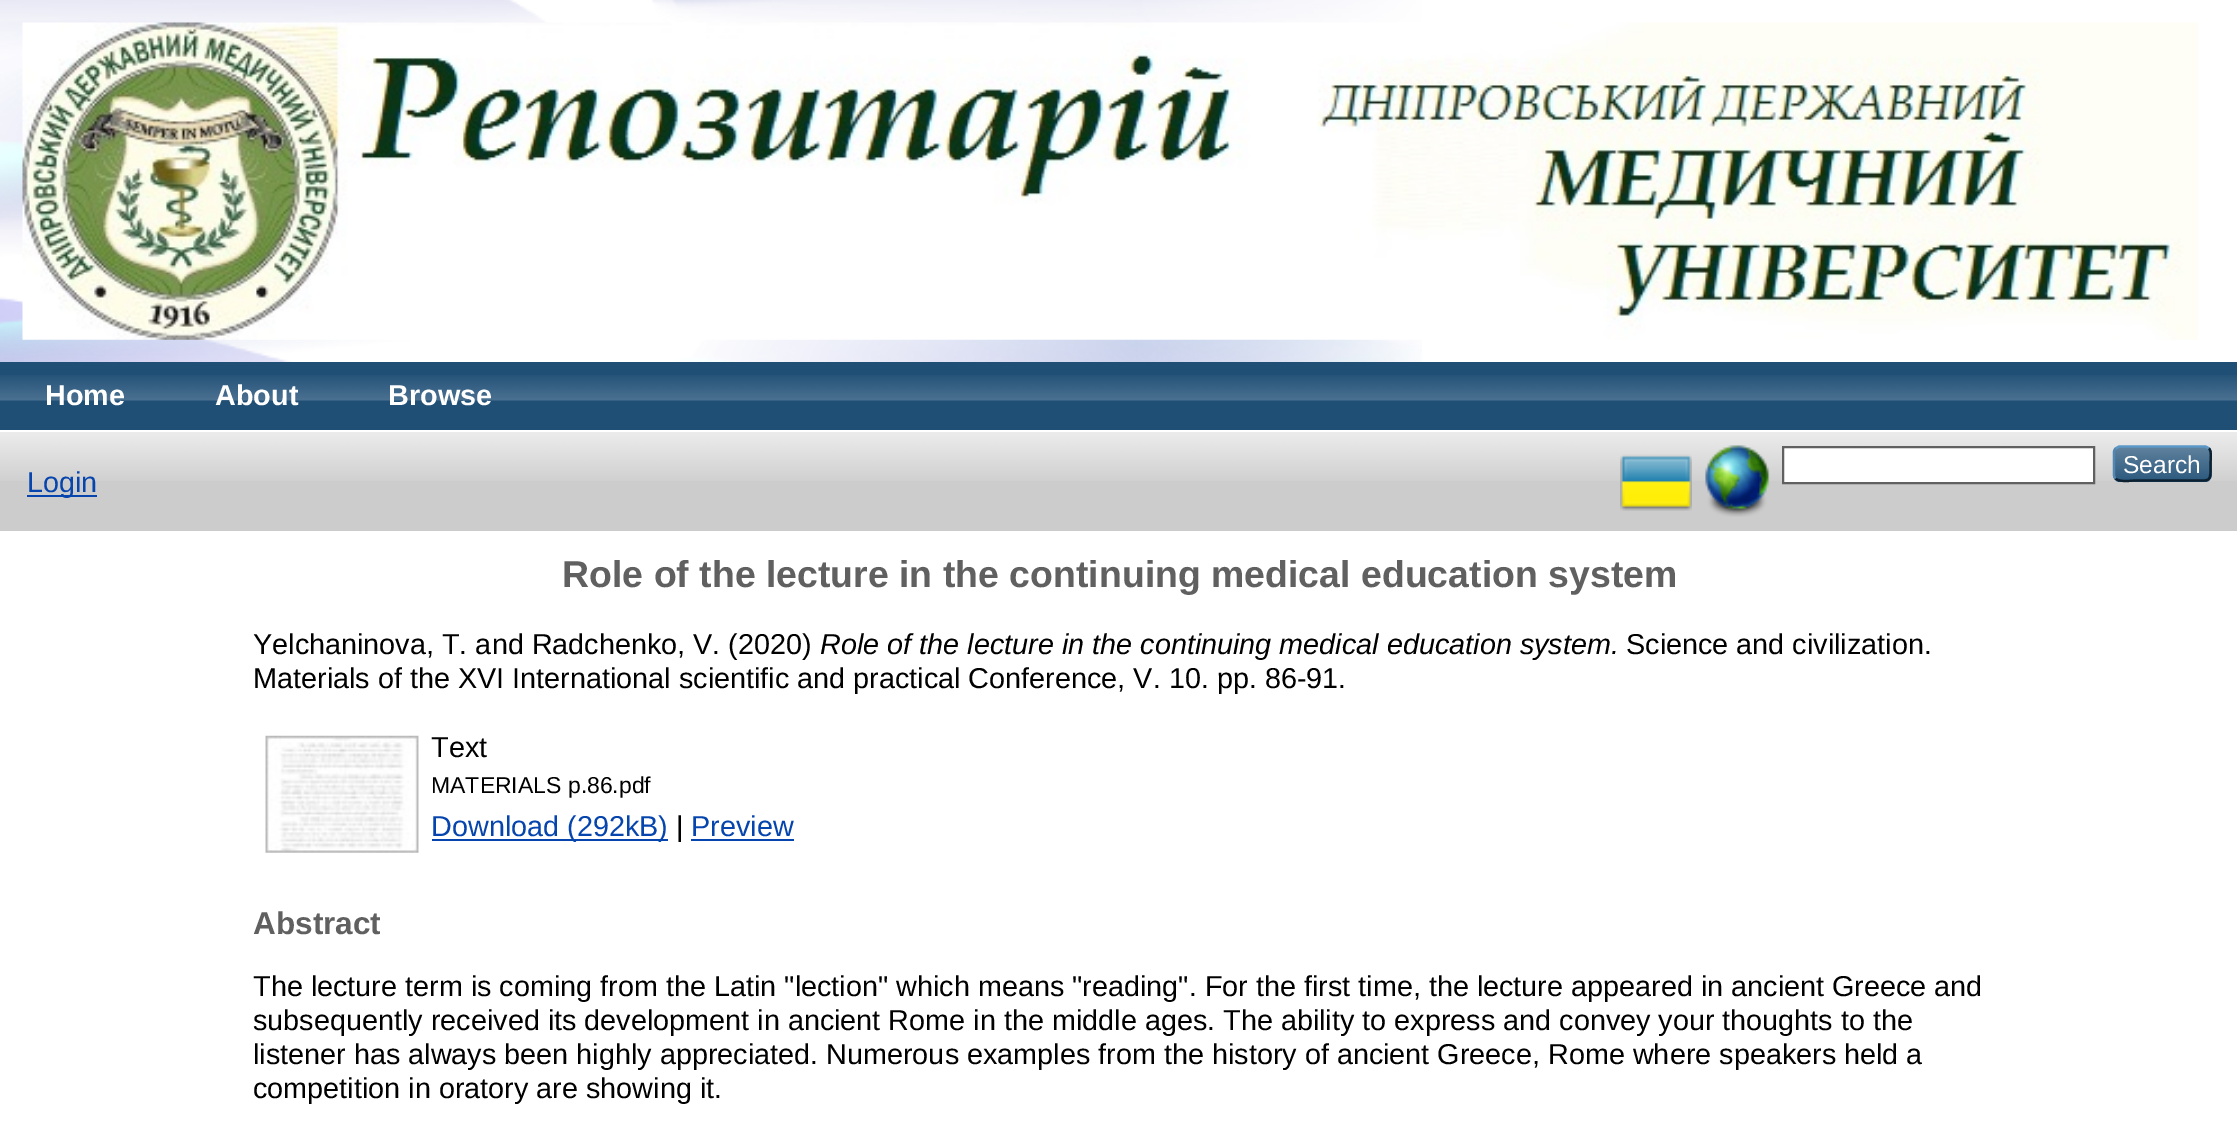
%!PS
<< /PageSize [2237 1127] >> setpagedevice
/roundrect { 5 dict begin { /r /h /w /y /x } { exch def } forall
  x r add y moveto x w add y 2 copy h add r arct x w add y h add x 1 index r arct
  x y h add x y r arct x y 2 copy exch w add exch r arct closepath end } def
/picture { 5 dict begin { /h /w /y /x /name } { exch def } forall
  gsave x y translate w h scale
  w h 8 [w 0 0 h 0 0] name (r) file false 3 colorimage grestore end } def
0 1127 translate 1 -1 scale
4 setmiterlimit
1 setgray
0 0 2237 1127 rectfill
(img1.rgb) 0 0 1422 362 picture
(img2.rgb) 22 22 2176 318 picture
0.125 0.31 0.463 setrgbcolor
0 362 2237 68 rectfill
(img3.rgb) 0 375 2237 26 picture
/LiberationSans-Bold [28.8 0 0 -28.8 0 0] selectfont
1 setgray
45 405 moveto (Home) show
215 405 moveto (About) show
388 405 moveto (Browse) show
0.8 setgray
0 432 2237 99 rectfill
(img4.rgb) 0 432 2237 49 picture
(img5.rgb) 1620 454 72 57 picture
(img6.rgb) 1705 445 65 72 picture
1 setgray
newpath 1783 447 moveto 2094 447 lineto 2094 483 lineto 1783 483 lineto closepath gsave fill grestore
0.376 setgray
2 setlinewidth
stroke
0.122 0.31 0.463 setrgbcolor
2113 446 99 36 7 roundrect fill
(img7.rgb) 2113 446 99 35 picture
0.357 0.592 0.78 setrgbcolor
2.2 setlinewidth
newpath 2115.5 448.5 moveto 2119 446.5 lineto 2205.5 446.5 lineto 2209 448.5 lineto stroke
0.051 0.129 0.192 setrgbcolor
newpath 2209 448.5 moveto 2212 451.5 2210.5 459.5 2210.5 463.5 curveto 2210.5 483 2211.5 480.5 2191 480.5 curveto 2134 480.5 lineto 2132.5 480.5 2119.5 482.5 2115.5 478.5 curveto stroke
0.322 0.529 0.702 setrgbcolor
newpath 2115.5 478.5 moveto 2114.5 477.5 2114 476 2114 475 curveto 2114 452 lineto 2114 451 2114.5 449.5 2115.5 448.5 curveto stroke
/LiberationSans-Regular [24.5 0 0 -24.5 0 0] selectfont
1 setgray
2123 473 moveto (Search) show
0.024 0.271 0.678 setrgbcolor
27 495 70 2 rectfill
/LiberationSans-Regular [28.8 0 0 -28.8 0 0] selectfont
27 492 moveto (Login) show
/LiberationSans-Bold [37.45 0 0 -37.45 0 0] selectfont
0.376 setgray
562 587 moveto (Role of the lecture in the continuing medical education system) show
/LiberationSans-Regular [28.8 0 0 -28.8 0 0] selectfont
0 setgray
253 654 moveto (Yelchaninova, T. and Radchenko, V. \(2020\)) show
/LiberationSans-Italic [28.8 0 0 -28.8 0 0] selectfont
820 654 moveto (Role of the lecture in the continuing medical education system.) show
/LiberationSans-Regular [28.8 0 0 -28.8 0 0] selectfont
1626 654 moveto (Science and сivilization.) show
253 688 moveto (Materials of the XVI International scientific and practical Conference, V. 10. pp. 86-91.) show
(img8.rgb) 265 735 154 118 picture
431 757 moveto (Text) show
/LiberationSans-Regular [23 0 0 -23 0 0] selectfont
431 793 moveto (MATERIALS p.86.pdf) show
0.024 0.271 0.678 setrgbcolor
432 839 236 2 rectfill
/LiberationSans-Regular [28.8 0 0 -28.8 0 0] selectfont
431 836 moveto (Download \(292kB\)) show
0 setgray
676 836 moveto (|) show
0.024 0.271 0.678 setrgbcolor
691 836 moveto (Preview) show
691 839 103 2 rectfill
/LiberationSans-Bold [31.5 0 0 -31.5 0 0] selectfont
0.376 setgray
253 934 moveto (Abstract) show
/LiberationSans-Regular [28.8 0 0 -28.8 0 0] selectfont
0 setgray
253 996 moveto (The lecture term is coming from the Latin "lection" which means "reading". For the first time, the lecture appeared in ancient Greece and) show
253 1030 moveto (subsequently received its development in ancient Rome in the middle ages. The ability to express and convey your thoughts to the) show
253 1064 moveto (listener has always been highly appreciated. Numerous examples from the history of ancient Greece, Rome where speakers held a) show
253 1098 moveto (competition in oratory are showing it.) show
showpage
